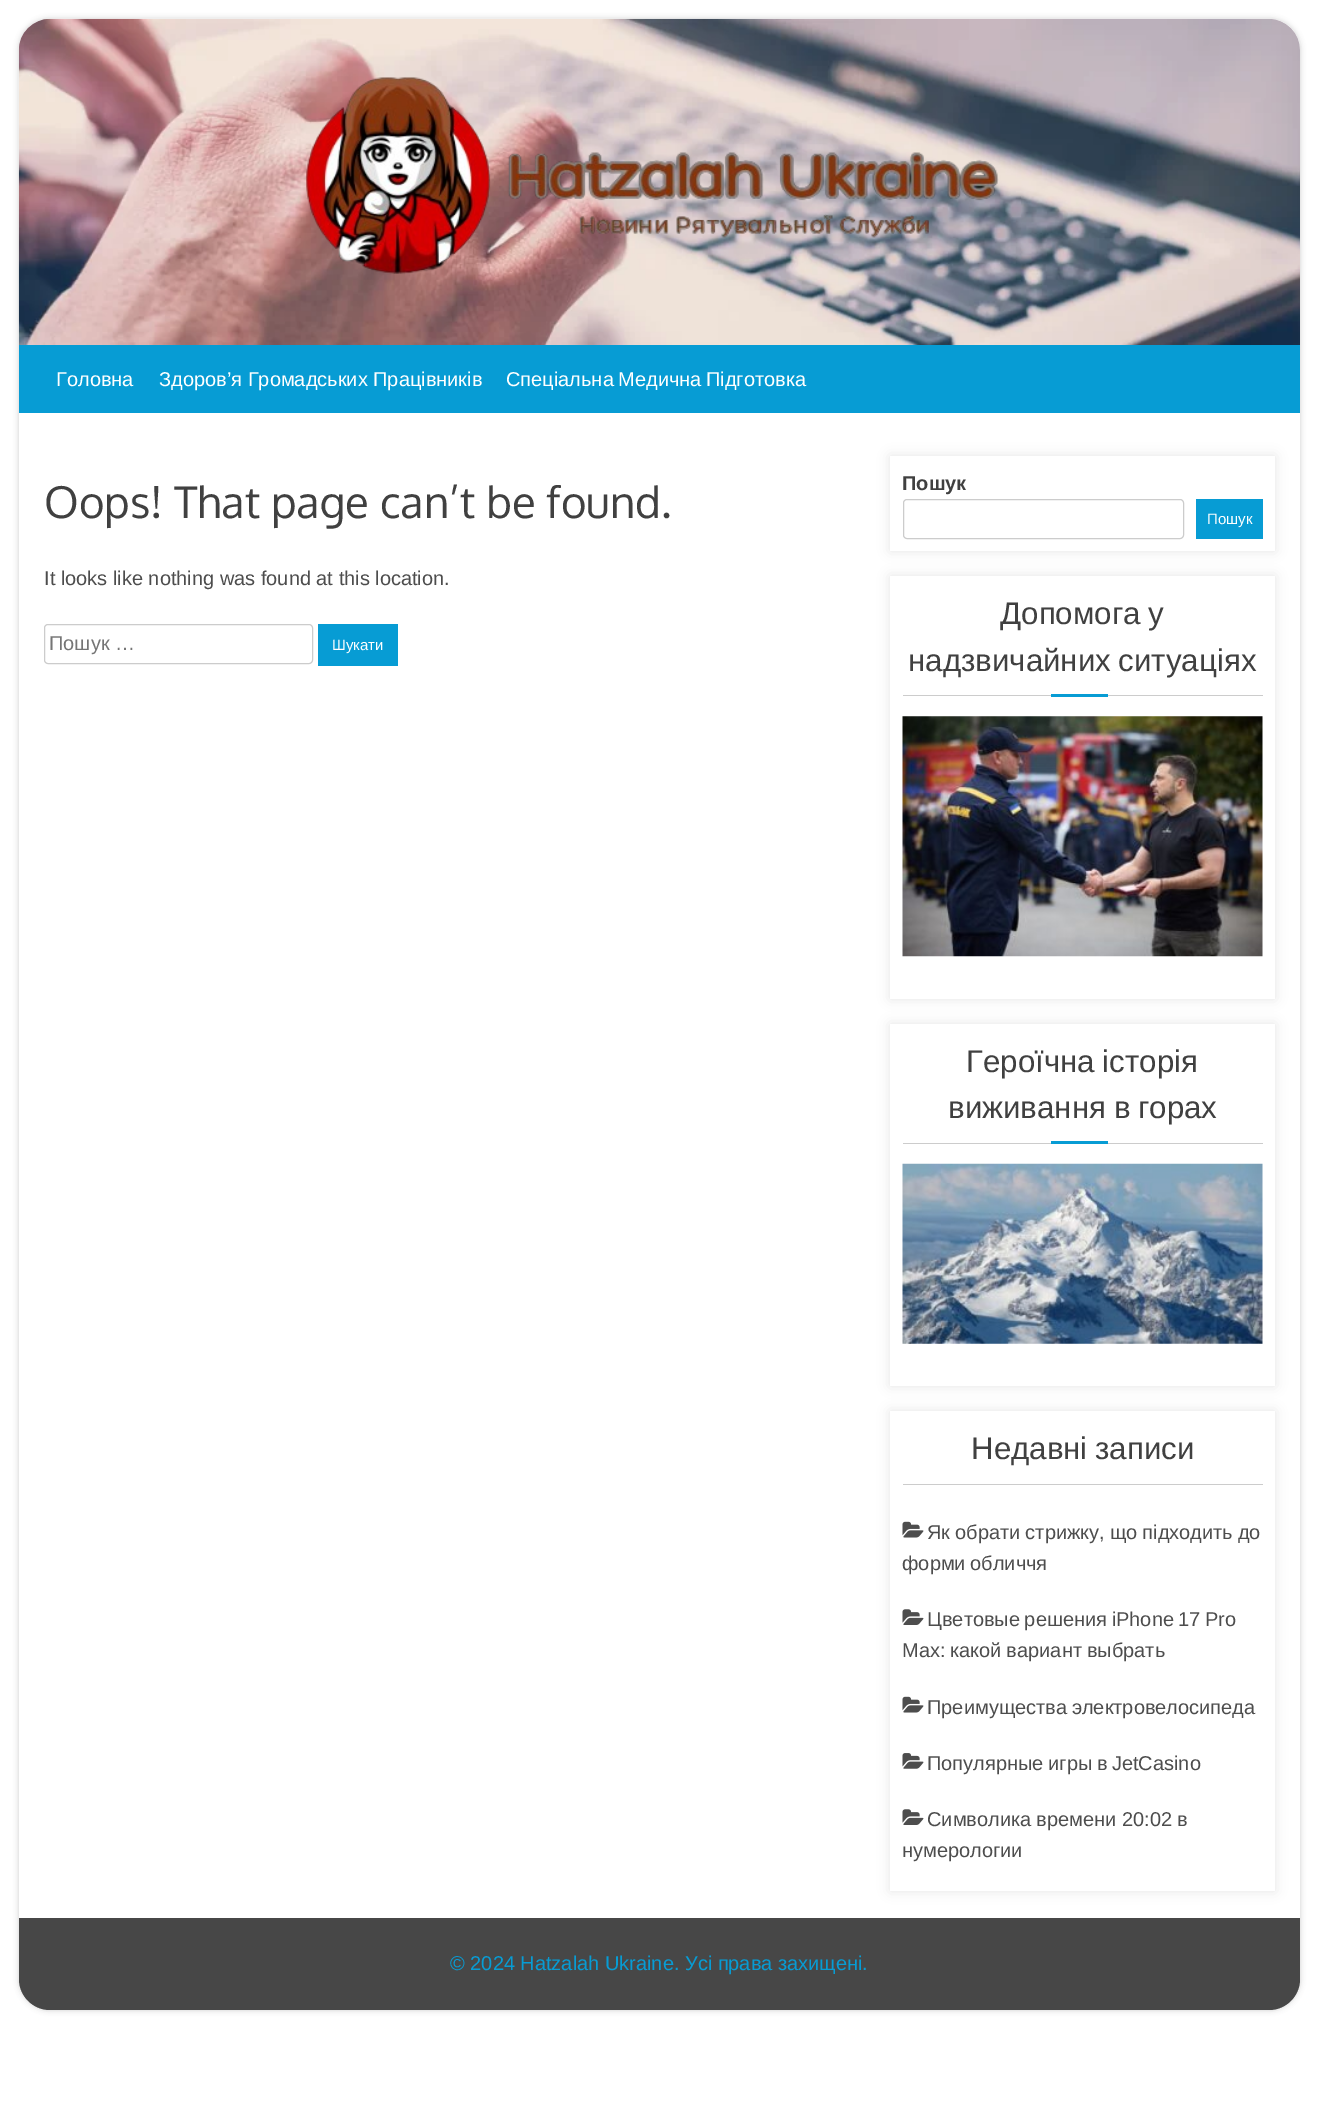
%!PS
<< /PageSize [1318 2107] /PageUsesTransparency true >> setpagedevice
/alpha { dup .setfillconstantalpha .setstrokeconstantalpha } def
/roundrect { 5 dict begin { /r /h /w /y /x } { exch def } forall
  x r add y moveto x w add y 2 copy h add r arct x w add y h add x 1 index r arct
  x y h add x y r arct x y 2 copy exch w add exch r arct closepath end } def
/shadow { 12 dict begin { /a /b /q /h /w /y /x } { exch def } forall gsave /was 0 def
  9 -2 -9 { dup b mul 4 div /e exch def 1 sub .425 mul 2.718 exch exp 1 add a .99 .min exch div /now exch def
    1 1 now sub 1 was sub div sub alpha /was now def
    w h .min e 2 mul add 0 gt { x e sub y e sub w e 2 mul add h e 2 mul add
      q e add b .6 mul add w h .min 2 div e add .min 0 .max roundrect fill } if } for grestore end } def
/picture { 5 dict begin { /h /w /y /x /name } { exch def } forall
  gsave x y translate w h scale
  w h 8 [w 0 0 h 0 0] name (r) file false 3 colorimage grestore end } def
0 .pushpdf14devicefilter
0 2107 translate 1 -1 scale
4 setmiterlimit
1 setgray
0 0 1318 2107 rectfill
0 setgray
19 19 1281 1991 31 3 0.2 shadow
1 setgray
19 19 1281 1991 31 roundrect fill
(img1.rgb) 18 18 1282 327 picture
(img2.rgb) 306 77 693 197 picture
0.027 0.612 0.831 setrgbcolor
19 345 1281 68 rectfill
/LiberationSans-Regular [20 0 0 -20 0 0] selectfont
1 setgray
56 386 moveto (Головна) show
159 386 moveto (Здоров’я Громадських Працівників) show
506 386 moveto -1 0 32 (Спеціальна Медична Підготовка) widthshow
/Oxygen-Regular [43.75 0 0 -43.75 0 0] selectfont
0.251 setgray
44 518 moveto (Oops! That page can’t be found.) show
/LiberationSans-Regular [20 0 0 -20 0 0] selectfont
0.302 setgray
44 585 moveto (It looks like nothing was found at this location.) show
0.8 setgray
44.5 624.5 268 39 3.5 roundrect stroke
0.459 setgray
49 650 moveto (Пошук …) show
0.027 0.612 0.831 setrgbcolor
318 624 80 42 rectfill
/LiberationSans-Regular [15 0 0 -15 0 0] selectfont
1 setgray
332 650 moveto (Шукати) show
gsave
newpath 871 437 moveto 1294 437 lineto 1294 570 lineto 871 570 lineto closepath 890 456 moveto 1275 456 lineto 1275 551 lineto 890 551 lineto closepath eoclip newpath
0 setgray
890 456 385 95 0 6 0.1 shadow
grestore
/LiberationSans-Bold [20 0 0 -20 0 0] selectfont
0.251 setgray
902 490 moveto (Пошук) show
0.8 setgray
903.5 499.5 280 39 3.5 roundrect stroke
0.027 0.612 0.831 setrgbcolor
1196 499 67 40 rectfill
/LiberationSans-Regular [15 0 0 -15 0 0] selectfont
1 setgray
1207 524 moveto (Пошук) show
gsave
newpath 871 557 moveto 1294 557 lineto 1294 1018 lineto 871 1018 lineto closepath 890 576 moveto 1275 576 lineto 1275 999 lineto 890 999 lineto closepath eoclip newpath
0 setgray
890 576 385 423 0 6 0.1 shadow
grestore
0.8 setgray
903 695 360 1 rectfill
/LiberationSans-Regular [31.25 0 0 -31.25 0 0] selectfont
0.251 setgray
1000 624 moveto -1 0 32 (Допомога у) widthshow
908 671 moveto -1 0 32 (надзвичайних ситуаціях) widthshow
0.027 0.612 0.831 setrgbcolor
1051 694 57 3 rectfill
(img3.rgb) 902 716 361 241 picture
gsave
newpath 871 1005 moveto 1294 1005 lineto 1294 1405 lineto 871 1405 lineto closepath 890 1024 moveto 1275 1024 lineto 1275 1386 lineto 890 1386 lineto closepath eoclip newpath
0 setgray
890 1024 385 362 0 6 0.1 shadow
grestore
0.8 setgray
903 1143 360 1 rectfill
0.251 setgray
966 1072 moveto -1 0 32 (Героїчна історія) widthshow
948 1118 moveto -1 0 32 (виживання в горах) widthshow
0.027 0.612 0.831 setrgbcolor
1051 1141 57 3 rectfill
(img4.rgb) 902 1163 361 181 picture
gsave
newpath 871 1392 moveto 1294 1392 lineto 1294 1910 lineto 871 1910 lineto closepath 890 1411 moveto 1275 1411 lineto 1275 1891 lineto 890 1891 lineto closepath eoclip newpath
0 setgray
890 1411 385 480 0 6 0.1 shadow
grestore
0.8 setgray
903 1484 360 1 rectfill
0.251 setgray
971 1459 moveto -1 0 32 (Недавні записи) widthshow
(img5.rgb) 902 1521 22 17 picture
/LiberationSans-Regular [20 0 0 -20 0 0] selectfont
0.302 setgray
927 1539 moveto -0.5 0 32 (Як обрати стрижку, що підходить до) widthshow
902 1570 moveto -1 0 32 (форми обличчя) widthshow
(img6.rgb) 902 1609 22 16 picture
927 1626 moveto -1 0 32 (Цветовые решения iPhone 17 Pro) widthshow
902 1657 moveto -0.5 0 32 (Max: какой вариант выбрать) widthshow
(img5.rgb) 902 1696 22 17 picture
927 1714 moveto -1 0 32 (Преимущества электровелосипеда) widthshow
(img7.rgb) 902 1753 22 16 picture
927 1770 moveto -1 0 32 (Популярные игры в JetCasino) widthshow
(img6.rgb) 902 1809 22 16 picture
927 1826 moveto (Символика времени 20:02 в) show
902 1857 moveto (нумерологии) show
0.9 alpha
0 setgray
newpath 19 1918 moveto 1300 1918 lineto 1300 1979 lineto 1300 1996 1286 2010 1269 2010 curveto 50 2010 lineto 33 2010 19 1996 19 1979 curveto closepath fill
0.2 alpha
1 setgray
newpath 19 1918 moveto 1300 1918 lineto 1300 1979 lineto 1300 1996 1286 2010 1269 2010 curveto 50 2010 lineto 33 2010 19 1996 19 1979 curveto closepath fill
1 alpha
0.027 0.612 0.831 setrgbcolor
450 1970 moveto (© 2024 Hatzalah Ukraine. Усі права захищені.) show
.poppdf14devicefilter showpage
